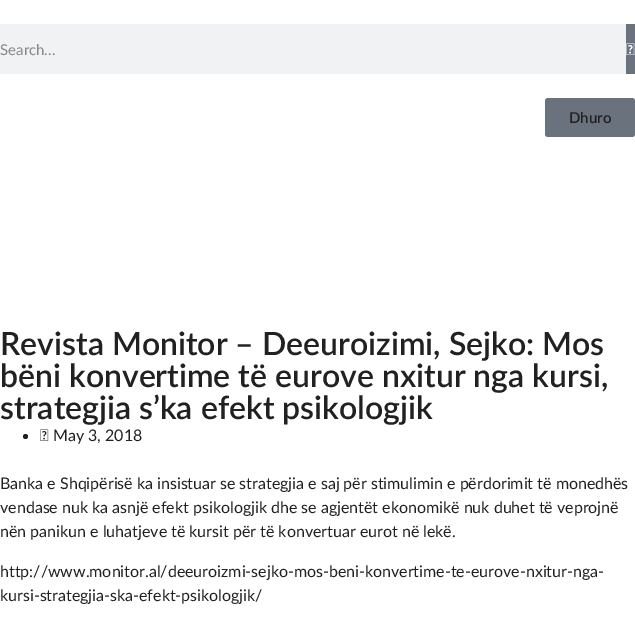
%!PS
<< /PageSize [635 628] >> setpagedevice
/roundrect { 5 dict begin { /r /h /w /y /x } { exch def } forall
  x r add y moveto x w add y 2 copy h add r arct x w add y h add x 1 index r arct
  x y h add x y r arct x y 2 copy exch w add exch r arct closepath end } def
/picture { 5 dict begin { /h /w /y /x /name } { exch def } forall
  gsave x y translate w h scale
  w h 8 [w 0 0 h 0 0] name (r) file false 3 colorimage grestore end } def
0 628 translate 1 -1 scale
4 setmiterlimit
1 setgray
0 0 635 628 rectfill
0.945 0.949 0.953 setrgbcolor
0 24 626 50 rectfill
/Lato-Regular [15 0 0 -15 0 0] selectfont
0.525 0.541 0.557 setrgbcolor
0 55 moveto (Search...) show
0.412 0.447 0.49 setrgbcolor
626 24 9 50 rectfill
(img1.rgb) 626 43 9 12 picture
545 98 90 39 3 roundrect fill
/Lato-SemiBold [15 0 0 -15 0 0] selectfont
0.129 setgray
569 123 moveto (Dhuro) show
/Lato-SemiBold [32 0 0 -32 0 0] selectfont
0 355 moveto (Revista Monitor – Deeuroizimi, Sejko: Mos) show
0 387 moveto (bëni konvertime të eurove nxitur nga kursi,) show
0 419 moveto (strategjia s’ka efekt psikologjik) show
newpath 25.5 436.5 2.5 0 360 arc closepath fill
(img2.rgb) 40 429 9 12 picture
/Lato-Regular [16 0 0 -16 0 0] selectfont
53 441 moveto (May 3, 2018) show
0 489 moveto (Banka e Shqipërisë ka insistuar se strategjia e saj për stimulimin e përdorimit të monedhës) show
0 513 moveto (vendase nuk ka asnjë efekt psikologjik dhe se agjentët ekonomikë nuk duhet të veprojnë) show
0 537 moveto (nën panikun e luhatjeve të kursit për të konvertuar eurot në lekë.) show
0 577 moveto (http://www.monitor.al/deeuroizmi-sejko-mos-beni-konvertime-te-eurove-nxitur-nga-) show
0 601 moveto (kursi-strategjia-ska-efekt-psikologjik/) show
showpage
